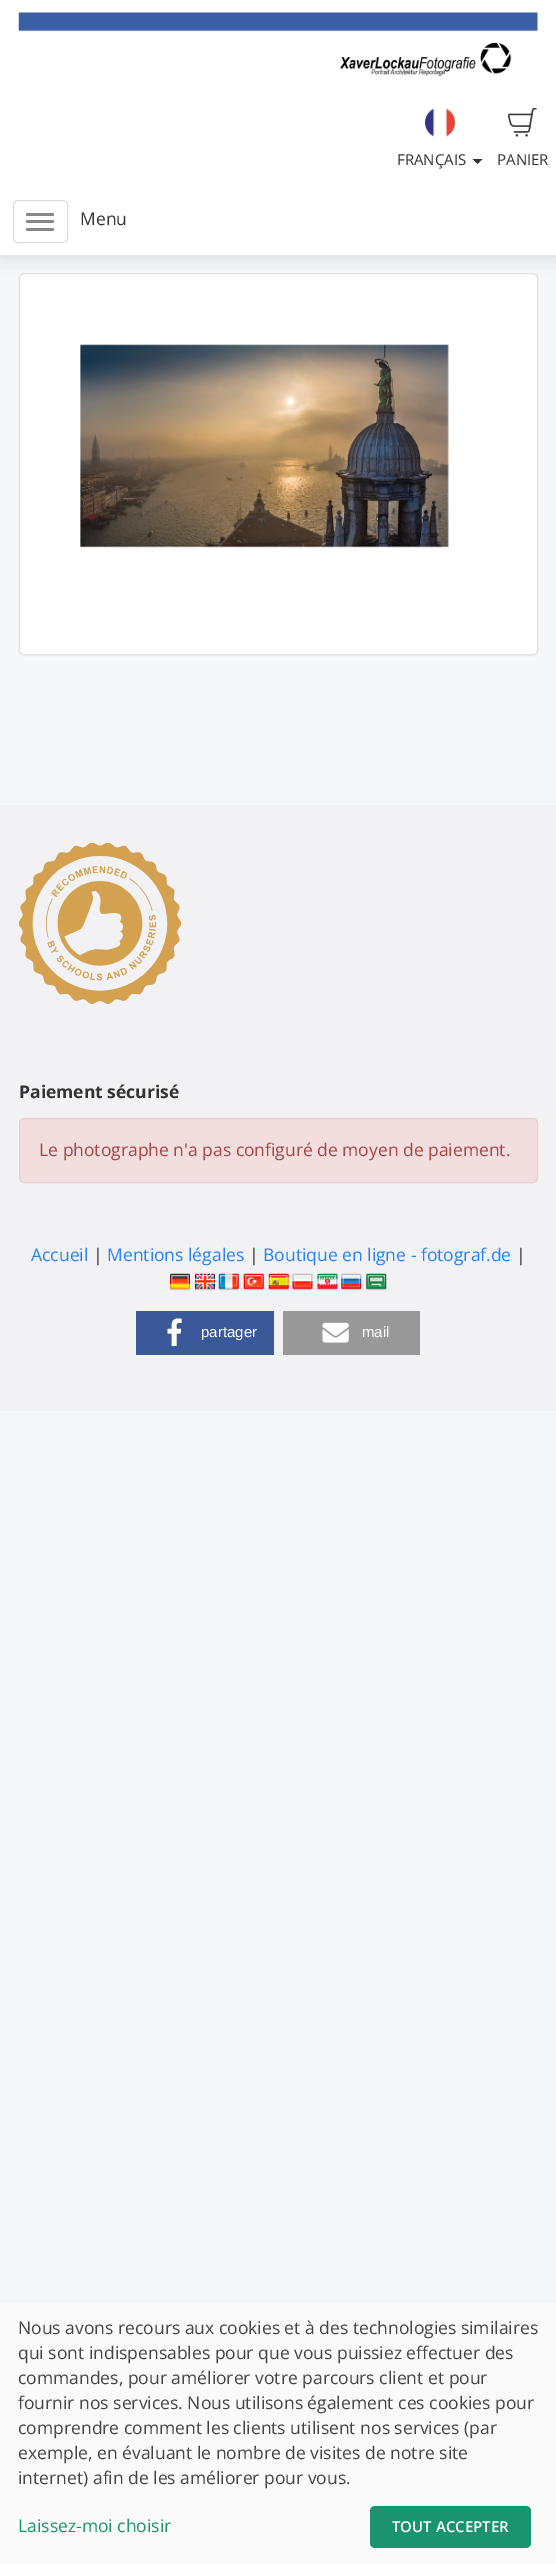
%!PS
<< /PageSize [556 2564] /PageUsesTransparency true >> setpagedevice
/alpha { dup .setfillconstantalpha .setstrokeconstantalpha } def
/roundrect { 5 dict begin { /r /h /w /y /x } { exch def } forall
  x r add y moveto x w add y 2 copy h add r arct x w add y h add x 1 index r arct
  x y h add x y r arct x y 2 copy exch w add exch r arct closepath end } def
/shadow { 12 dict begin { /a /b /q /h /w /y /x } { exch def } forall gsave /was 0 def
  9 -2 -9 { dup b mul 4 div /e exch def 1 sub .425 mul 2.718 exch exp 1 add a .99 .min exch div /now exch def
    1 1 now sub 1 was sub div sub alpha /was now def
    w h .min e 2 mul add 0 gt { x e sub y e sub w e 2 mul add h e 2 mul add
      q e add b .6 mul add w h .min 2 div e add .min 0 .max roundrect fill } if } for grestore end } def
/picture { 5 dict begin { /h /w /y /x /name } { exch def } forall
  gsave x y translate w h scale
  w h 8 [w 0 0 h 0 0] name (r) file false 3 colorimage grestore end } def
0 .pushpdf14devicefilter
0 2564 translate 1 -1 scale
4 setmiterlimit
0.965 0.969 0.973 setrgbcolor
0 0 556 2564 rectfill
0 setgray
19 274 519 382 5 0.5 0.05 shadow
1 setgray
19.5 273.5 518 381 4.5 roundrect gsave fill grestore
0.89 setgray
stroke
0 setgray
-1 186 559 70 0 10.5 0.14 shadow
1 setgray
0 0 556 255 rectfill
(img1.rgb) 18 12 520 64 picture
(img2.rgb) 425 108 30 29 picture
/OpenSans-Regular [15 0 0 -15 0 0] selectfont
0.2 setgray
397 165 moveto (FRANÇAIS) show
newpath 472.5 159 moveto 482.5 159 lineto 477.5 164 lineto closepath fill
(img3.rgb) 508 108 29 29 picture
497 165 moveto (PANIER) show
0.867 setgray
13.5 200.5 54 42 4.5 roundrect stroke
0.533 setgray
26 213 28 3 1.5 roundrect fill
26 220 28 3 1.5 roundrect fill
26 228 28 3 1.5 roundrect fill
/OpenSans-Regular [17.5 0 0 -17.5 0 0] selectfont
0.2 setgray
80 225 moveto (Menu) show
(img4.rgb) 80 342 370 206 picture
0.949 0.945 0.957 setrgbcolor
0 805 556 606 rectfill
(img5.rgb) 19 843 162 162 picture
/OpenSans-Bold [17.5 0 0 -17.5 0 0] selectfont
0.2 setgray
19 1098 moveto (Paiement sécurisé) show
0.949 0.871 0.871 setrgbcolor
19.5 1118.5 518 64 4.5 roundrect gsave fill grestore
0.922 0.8 0.82 setrgbcolor
stroke
/OpenSans-Regular [17.5 0 0 -17.5 0 0] selectfont
0.663 0.267 0.259 setrgbcolor
39 1156 moveto (Le photographe n'a pas configuré de moyen de paiement.) show
0.145 0.51 0.961 setrgbcolor
31 1261 moveto (Accueil) show
0.2 setgray
93 1261 moveto (|) show
0.145 0.51 0.961 setrgbcolor
107 1261 moveto (Mentions légales) show
0.2 setgray
249 1261 moveto (|) show
0.145 0.51 0.961 setrgbcolor
263 1261 moveto (Boutique en ligne - fotograf.de) show
0.2 setgray
516 1261 moveto (|) show
(img6.rgb) 170 1273 20 18 picture
(img7.rgb) 195 1273 20 18 picture
(img8.rgb) 218 1273 21 18 picture
(img9.rgb) 243 1273 21 18 picture
(img10.rgb) 268 1273 21 18 picture
(img11.rgb) 292 1273 21 18 picture
(img12.rgb) 317 1273 21 18 picture
(img13.rgb) 341 1273 21 18 picture
(img14.rgb) 366 1273 21 18 picture
0.231 0.349 0.596 setrgbcolor
136 1311 138 44 rectfill
(img15.rgb) 167 1318 15 28 picture
/LiberationSans-Regular [15 0 0 -15 0 0] selectfont
1 setgray
201 1337 moveto (partager) show
0.6 setgray
283 1311 137 44 rectfill
(img16.rgb) 322 1322 27 21 picture
1 setgray
362 1337 moveto (mail) show
0.98 setgray
0 2303 556 261 rectfill
/OpenSans-Regular [17.5 0 0 -17.5 0 0] selectfont
0.267 setgray
18 2334 moveto (Nous avons recours aux cookies et à des technologies similaires) show
18 2359 moveto (qui sont indispensables pour que vous puissiez effectuer des) show
18 2384 moveto (commandes, pour améliorer votre parcours client et pour) show
18 2409 moveto (fournir nos services. Nous utilisons également ces cookies pour) show
18 2434 moveto (comprendre comment les clients utilisent nos services \(par) show
18 2459 moveto (exemple, en évaluant le nombre de visites de notre site) show
18 2484 moveto (internet\) afin de les améliorer pour vous.) show
0.102 0.576 0.435 setrgbcolor
18 2532 moveto (Laissez-moi choisir) show
370 2506 161 42 5 roundrect fill
/OpenSans-SemiBold [15 0 0 -15 0 0] selectfont
1 setgray
392 2532 moveto (TOUT ACCEPTER) show
.poppdf14devicefilter showpage
